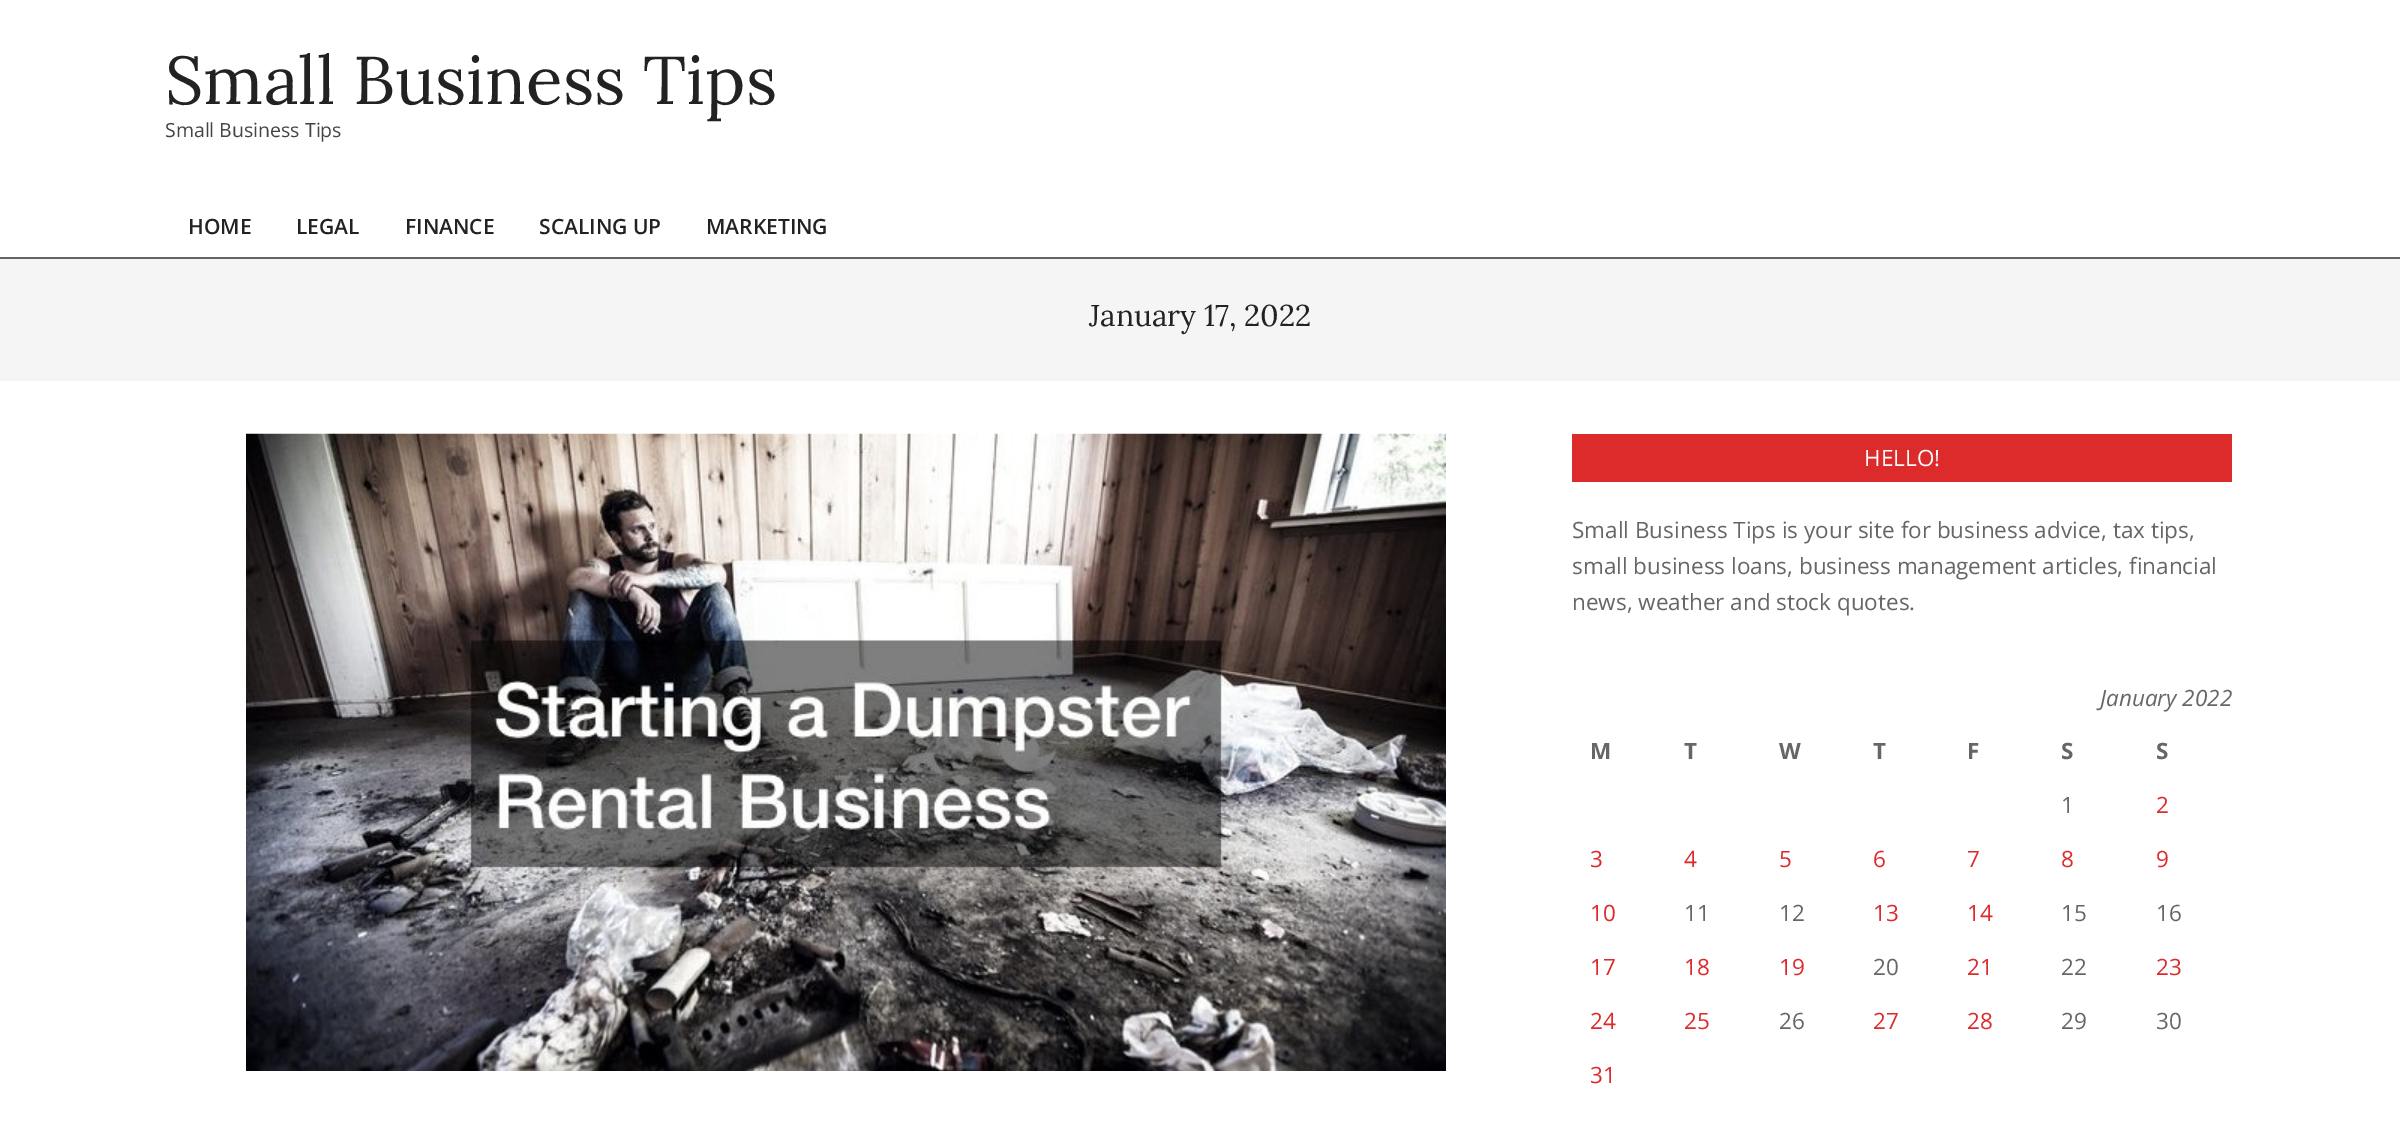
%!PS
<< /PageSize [2400 1130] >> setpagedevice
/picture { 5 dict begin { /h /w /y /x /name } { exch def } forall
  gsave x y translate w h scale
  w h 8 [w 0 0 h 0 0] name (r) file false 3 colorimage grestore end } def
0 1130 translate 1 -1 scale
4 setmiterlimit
1 setgray
0 0 2400 1130 rectfill
0.961 setgray
0 259 2400 122 rectfill
0.4 setgray
0 257 2400 1 rectfill
0.384 setgray
0 258 2400 1 rectfill
/Lora-Regular [67.5 0 0 -67.5 0 0] selectfont
0.133 setgray
165 104 moveto (Small Business Tips) show
/OpenSans-Regular [19.5 0 0 -19.5 0 0] selectfont
0.267 setgray
165 137 moveto (Small Business Tips) show
/OpenSans-SemiBold [21 0 0 -21 0 0] selectfont
0.133 setgray
188 234 moveto (HOME) show
296 234 moveto (LEGAL) show
405 234 moveto (FINANCE) show
539 234 moveto (SCALING UP) show
706 234 moveto (MARKETING) show
/Lora-Regular [30 0 0 -30 0 0] selectfont
1089 326 moveto (January 17, 2022) show
(img1.rgb) 246 433 1200 638 picture
0.867 0.165 0.165 setrgbcolor
1572 434 660 48 rectfill
/OpenSans-Regular [22.5 0 0 -22.5 0 0] selectfont
1 setgray
1864 466 moveto (HELLO!) show
0.4 setgray
1572 538 moveto (Small Business Tips is your site for business advice, tax tips,) show
1572 574 moveto (small business loans, business management articles, financial) show
1572 610 moveto (news, weather and stock quotes.) show
/OpenSans-Italic [22.5 0 0 -22.5 0 0] selectfont
2100 706 moveto (January 2022) show
/OpenSans-Bold [22.5 0 0 -22.5 0 0] selectfont
1590 759 moveto 2 0 (M) ashow
1684 759 moveto 2 0 (T) ashow
1779 759 moveto 2 0 (W) ashow
1873 759 moveto 2 0 (T) ashow
1967 759 moveto 2 0 (F) ashow
2061 759 moveto 2 0 (S) ashow
2156 759 moveto 2 0 (S) ashow
/OpenSans-Regular [22.5 0 0 -22.5 0 0] selectfont
2061 813 moveto (1) show
0.867 0.165 0.165 setrgbcolor
2156 813 moveto (2) show
1590 867 moveto (3) show
1684 867 moveto (4) show
1779 867 moveto (5) show
1873 867 moveto (6) show
1967 867 moveto (7) show
2061 867 moveto (8) show
2156 867 moveto (9) show
1590 921 moveto (10) show
0.4 setgray
1684 921 moveto (11) show
1779 921 moveto (12) show
0.867 0.165 0.165 setrgbcolor
1873 921 moveto (13) show
1967 921 moveto (14) show
0.4 setgray
2061 921 moveto (15) show
2156 921 moveto (16) show
0.867 0.165 0.165 setrgbcolor
1590 975 moveto (17) show
1684 975 moveto (18) show
1779 975 moveto (19) show
0.4 setgray
1873 975 moveto (20) show
0.867 0.165 0.165 setrgbcolor
1967 975 moveto (21) show
0.4 setgray
2061 975 moveto (22) show
0.867 0.165 0.165 setrgbcolor
2156 975 moveto (23) show
1590 1029 moveto (24) show
1684 1029 moveto (25) show
0.4 setgray
1779 1029 moveto (26) show
0.867 0.165 0.165 setrgbcolor
1873 1029 moveto (27) show
1967 1029 moveto (28) show
0.4 setgray
2061 1029 moveto (29) show
2156 1029 moveto (30) show
0.867 0.165 0.165 setrgbcolor
1590 1083 moveto (31) show
showpage
